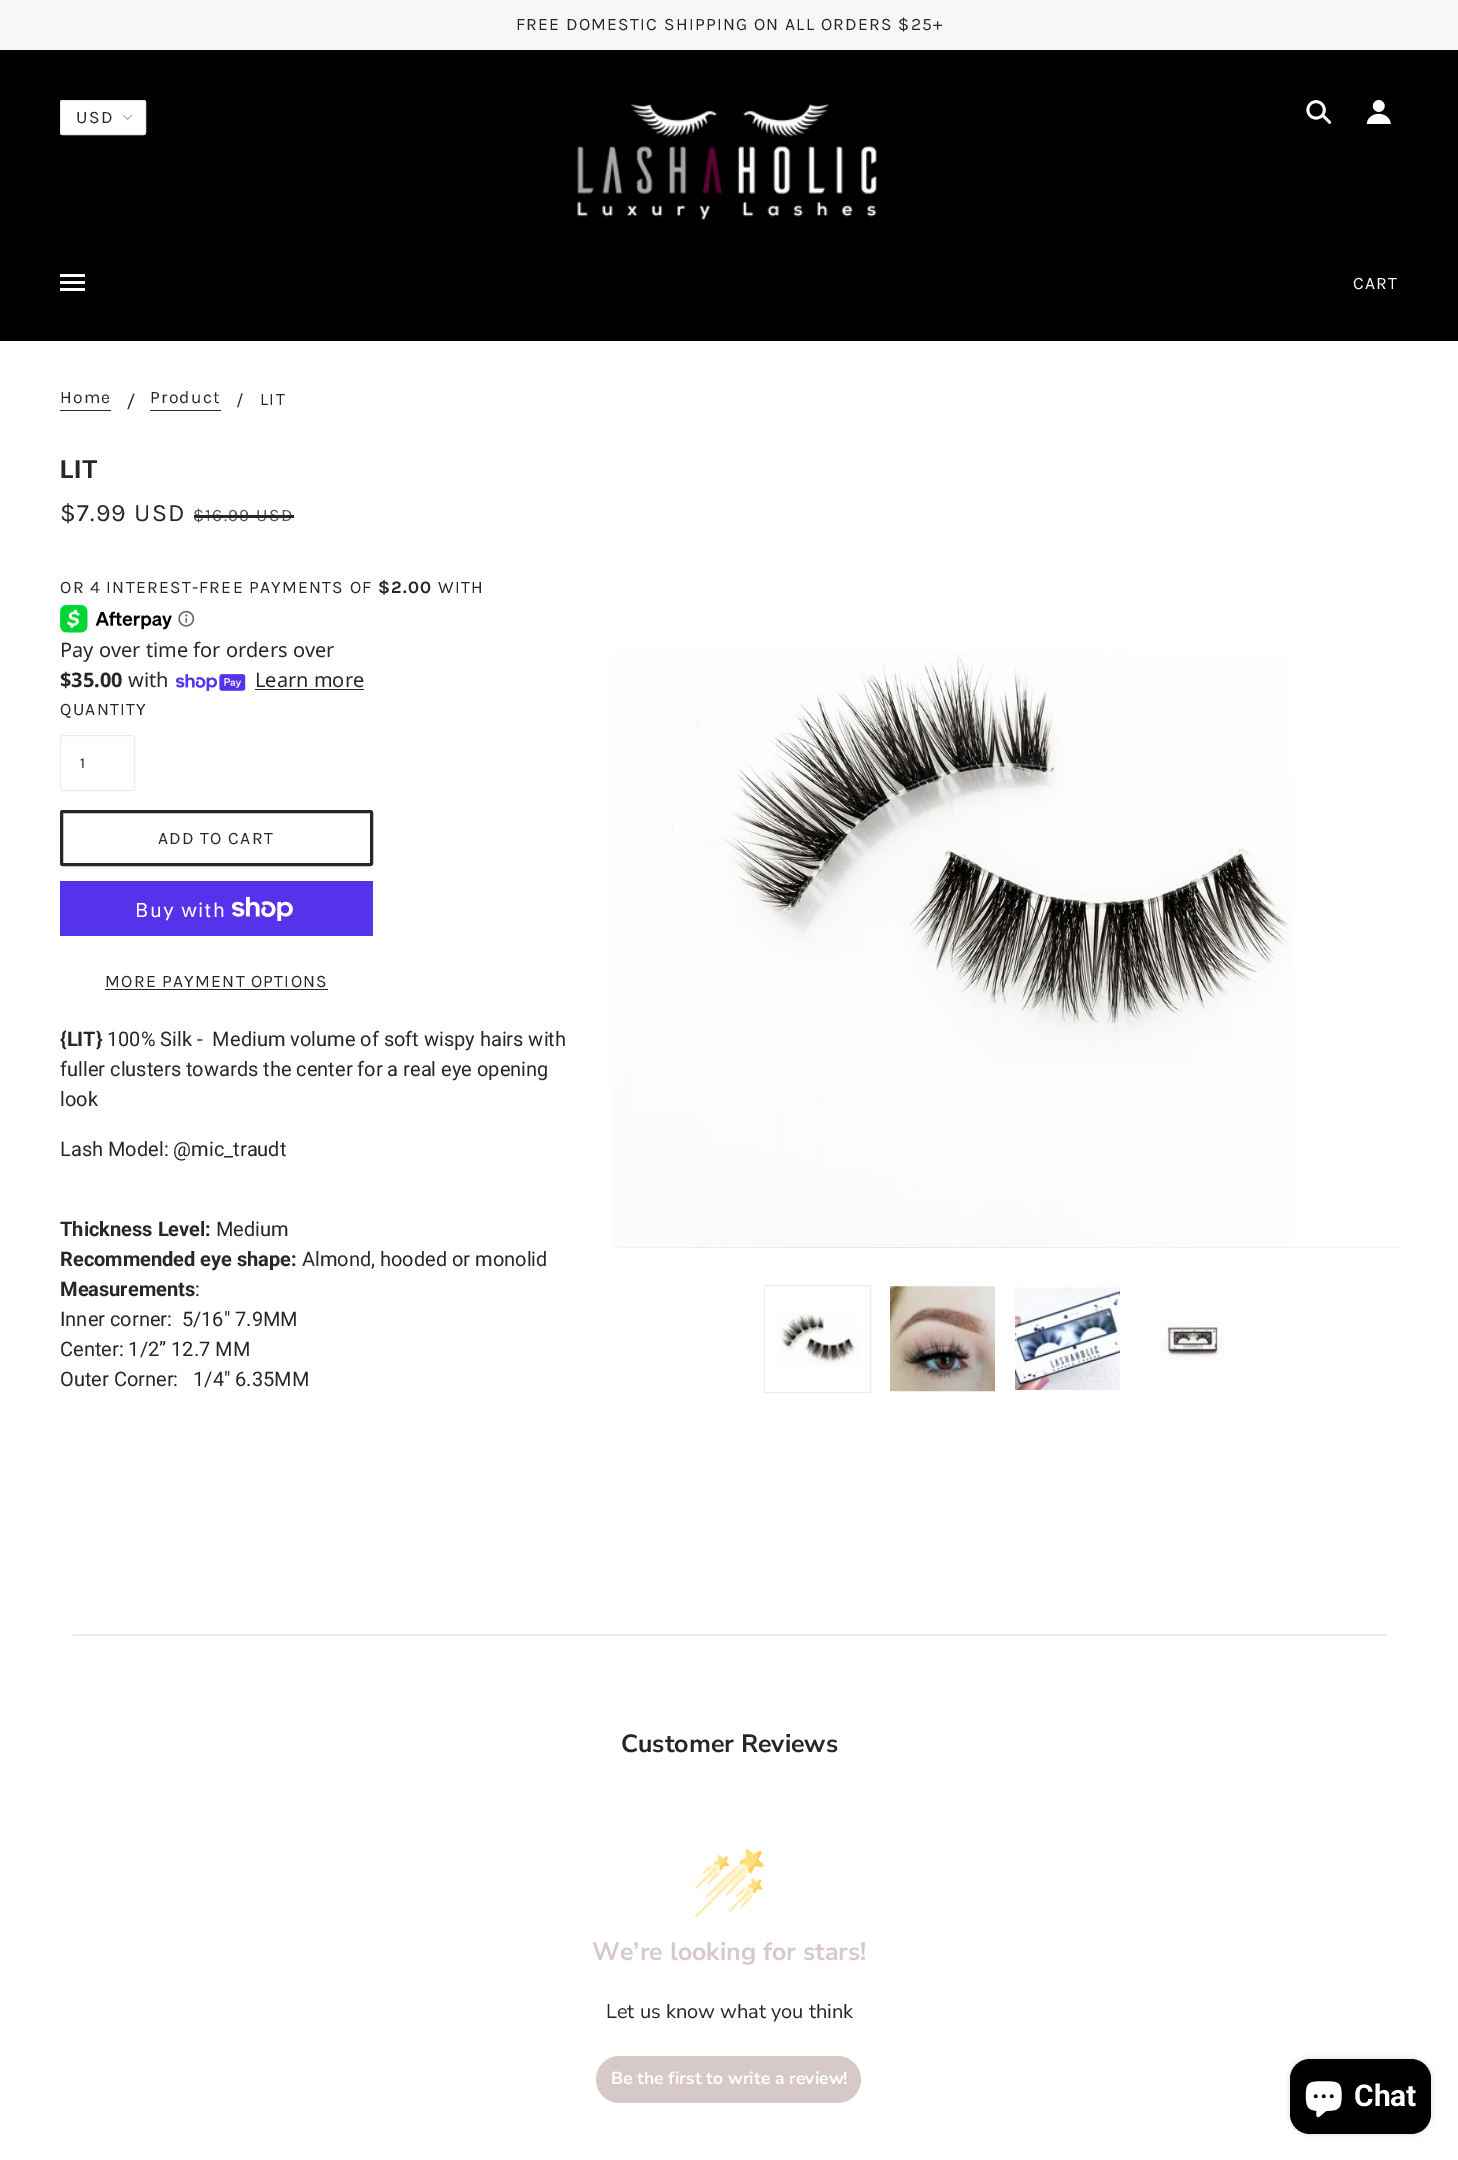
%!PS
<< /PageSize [1458 2160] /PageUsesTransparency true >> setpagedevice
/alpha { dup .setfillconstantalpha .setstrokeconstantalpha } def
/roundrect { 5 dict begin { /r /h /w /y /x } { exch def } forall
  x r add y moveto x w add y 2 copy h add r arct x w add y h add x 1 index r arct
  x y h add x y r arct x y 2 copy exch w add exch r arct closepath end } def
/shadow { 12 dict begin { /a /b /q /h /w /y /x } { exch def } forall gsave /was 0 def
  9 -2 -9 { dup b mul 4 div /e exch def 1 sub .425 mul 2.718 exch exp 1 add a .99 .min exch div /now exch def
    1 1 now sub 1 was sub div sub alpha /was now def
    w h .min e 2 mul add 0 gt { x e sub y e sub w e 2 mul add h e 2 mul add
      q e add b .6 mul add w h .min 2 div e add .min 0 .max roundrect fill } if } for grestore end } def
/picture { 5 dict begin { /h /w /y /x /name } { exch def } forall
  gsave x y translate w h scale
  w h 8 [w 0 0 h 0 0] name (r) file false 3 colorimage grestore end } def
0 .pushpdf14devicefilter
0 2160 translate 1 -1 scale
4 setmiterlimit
1 setgray
0 0 1458 2160 rectfill
0.969 setgray
0 0 1458 50 rectfill
/Karla-Regular [17.5 0 0 -17.5 0 0] selectfont
0.153 setgray
516 30 moveto 1.25 0 (FREE DOMESTIC SHIPPING ON ALL ORDERS $25+) ashow
0 setgray
0 50 1458 291 rectfill
1 setgray
60 100 86 35 2.5 roundrect fill
(img1.rgb) 123 115 9 5 picture
0.922 setgray
60.5 100.5 85 34 2 roundrect stroke
0.153 setgray
76 123 moveto 1.25 0 (USD) ashow
(img2.rgb) 577 103 300 117 picture
(img3.rgb) 1306 100 26 24 picture
(img4.rgb) 1366 100 25 24 picture
(img5.rgb) 60 274 25 17 picture
1 setgray
1353 289 moveto 1.25 0 (CART) ashow
0.153 setgray
60 403 moveto 1.25 0 (Home) ashow
60 410 51 1 rectfill
/Roboto-Regular [20 0 0 -20 0 0] selectfont
127 408 moveto (/) show
/Karla-Regular [17.5 0 0 -17.5 0 0] selectfont
150 403 moveto 1.25 0 (Product) ashow
150 410 71 1 rectfill
236 406 moveto 1.25 0 (/) ashow
260 405 moveto 1.25 0 (LIT) ashow
/Roboto-Bold [25 0 0 -25 0 0] selectfont
60 478 moveto 0.5 0 (LIT) ashow
/Karla-Regular [25 0 0 -25 0 0] selectfont
60 521 moveto 1.25 0 ($7.99 USD) ashow
/Karla-Regular [17.5 0 0 -17.5 0 0] selectfont
0.341 setgray
193 521 moveto 1.25 0 ($16.99 USD) ashow
0.153 setgray
194 515 100 3 rectfill
60 593 moveto 1.25 0 (OR 4 INTEREST-FREE PAYMENTS OF) ashow
/Karla-Bold [17.5 0 0 -17.5 0 0] selectfont
378 593 moveto 1.25 0 ($2.00) ashow
/Karla-Regular [17.5 0 0 -17.5 0 0] selectfont
438 593 moveto 1.25 0 (WITH) ashow
(img6.rgb) 60 605 112 28 picture
(img7.rgb) 178 610 17 17 picture
/NotoSans-Regular [20 0 0 -20 0 0] selectfont
60 657 moveto (Pay over time for orders over) show
/NotoSans-Bold [20 0 0 -20 0 0] selectfont
60 687 moveto ($35.00) show
/NotoSans-Regular [20 0 0 -20 0 0] selectfont
128 687 moveto (with) show
(img8.rgb) 176 674 70 17 picture
255 687 moveto (Learn more) show
255 689 109 1 rectfill
/Karla-Regular [17.5 0 0 -17.5 0 0] selectfont
60 715 moveto 1.25 0 (QUANTITY) ashow
0.922 setgray
60.5 735.5 74 55 2 roundrect stroke
/Karla-Regular [15 0 0 -15 0 0] selectfont
0.153 setgray
80 768 moveto 1 0 (1) ashow
3 setlinewidth
61.5 811.5 310 53 1 roundrect stroke
/Karla-Regular [17.5 0 0 -17.5 0 0] selectfont
158 844 moveto 1.25 0 (ADD TO CART) ashow
0.329 0.2 0.922 setrgbcolor
60 881 313 55 rectfill
/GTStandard-Regular [20 0 0 -20 0 0] selectfont
1 setgray
135 917 moveto 1.25 0 (Buy with) ashow
(img9.rgb) 231 896 62 25 picture
/Karla-Regular [17.5 0 0 -17.5 0 0] selectfont
0.153 setgray
105 987 moveto 1.25 0 (MORE PAYMENT OPTIONS) ashow
105 989 223 1 rectfill
(img10.rgb) 612 653 680 594 picture
(img11.rgb) 611 1247 788 1 picture
(img12.rgb) 612 1247 765 1 picture
0.25 alpha
0.984 setgray
612 1247 557 1 rectfill
1 alpha
(img13.rgb) 779 1312 80 54 picture
0.922 setgray
1 setlinewidth
764.5 1285.5 106 107 rectstroke
(img14.rgb) 890 1286 105 106 picture
(img15.rgb) 1015 1287 105 103 picture
(img16.rgb) 1160 1322 65 38 picture
/Roboto-Bold [20 0 0 -20 0 0] selectfont
0.153 setgray
60 1046 moveto ({LIT}) show
/Roboto-Regular [20 0 0 -20 0 0] selectfont
107 1046 moveto (100% Silk -  Medium volume of soft wispy hairs with) show
60 1076 moveto (fuller clusters towards the center for a real eye opening) show
60 1106 moveto (look) show
60 1156 moveto (Lash Model: @mic_traudt) show
/Roboto-Bold [20 0 0 -20 0 0] selectfont
60 1236 moveto (Thickness Level:) show
/Roboto-Regular [20 0 0 -20 0 0] selectfont
216 1236 moveto (Medium) show
/Roboto-Bold [20 0 0 -20 0 0] selectfont
60 1266 moveto (Recommended eye shape:) show
/Roboto-Regular [20 0 0 -20 0 0] selectfont
302 1266 moveto (Almond, hooded or monolid) show
/Roboto-Bold [20 0 0 -20 0 0] selectfont
60 1296 moveto (Measurements) show
/Roboto-Regular [20 0 0 -20 0 0] selectfont
195 1296 moveto (:) show
60 1326 moveto (Inner corner:  5/16" 7.9MM) show
60 1356 moveto (Center: 1/2” 12.7 MM) show
60 1386 moveto (Outer Corner:   1/4" 6.35MM) show
(img17.rgb) 72 1634 1315 2 picture
/NunitoSans-ExtraLight [25 0 0 -25 0 0] selectfont
621 1752 moveto (Customer Reviews) show
(img18.rgb) 695 1849 69 69 picture
0.847 0.788 0.788 setrgbcolor
592 1960 moveto (We’re looking for stars!) show
/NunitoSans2-ExtraLight [20 0 0 -20 0 0] selectfont
0.153 setgray
606 2018 moveto (Let us know what you think) show
0.847 0.788 0.788 setrgbcolor
596 2056 265 47 23.5 roundrect fill
/NunitoSans-ExtraLight [17.5 0 0 -17.5 0 0] selectfont
1 setgray
611 2084 moveto (Be the first to write a review!) show
0 setgray
1290 2059 141 75 20 3 0.15 shadow
1290 2059 141 75 20 roundrect fill
(img19.rgb) 1305 2081 37 37 picture
/Roboto-Bold [30 0 0 -30 0 0] selectfont
1 setgray
1354 2106 moveto (Chat) show
.poppdf14devicefilter showpage
